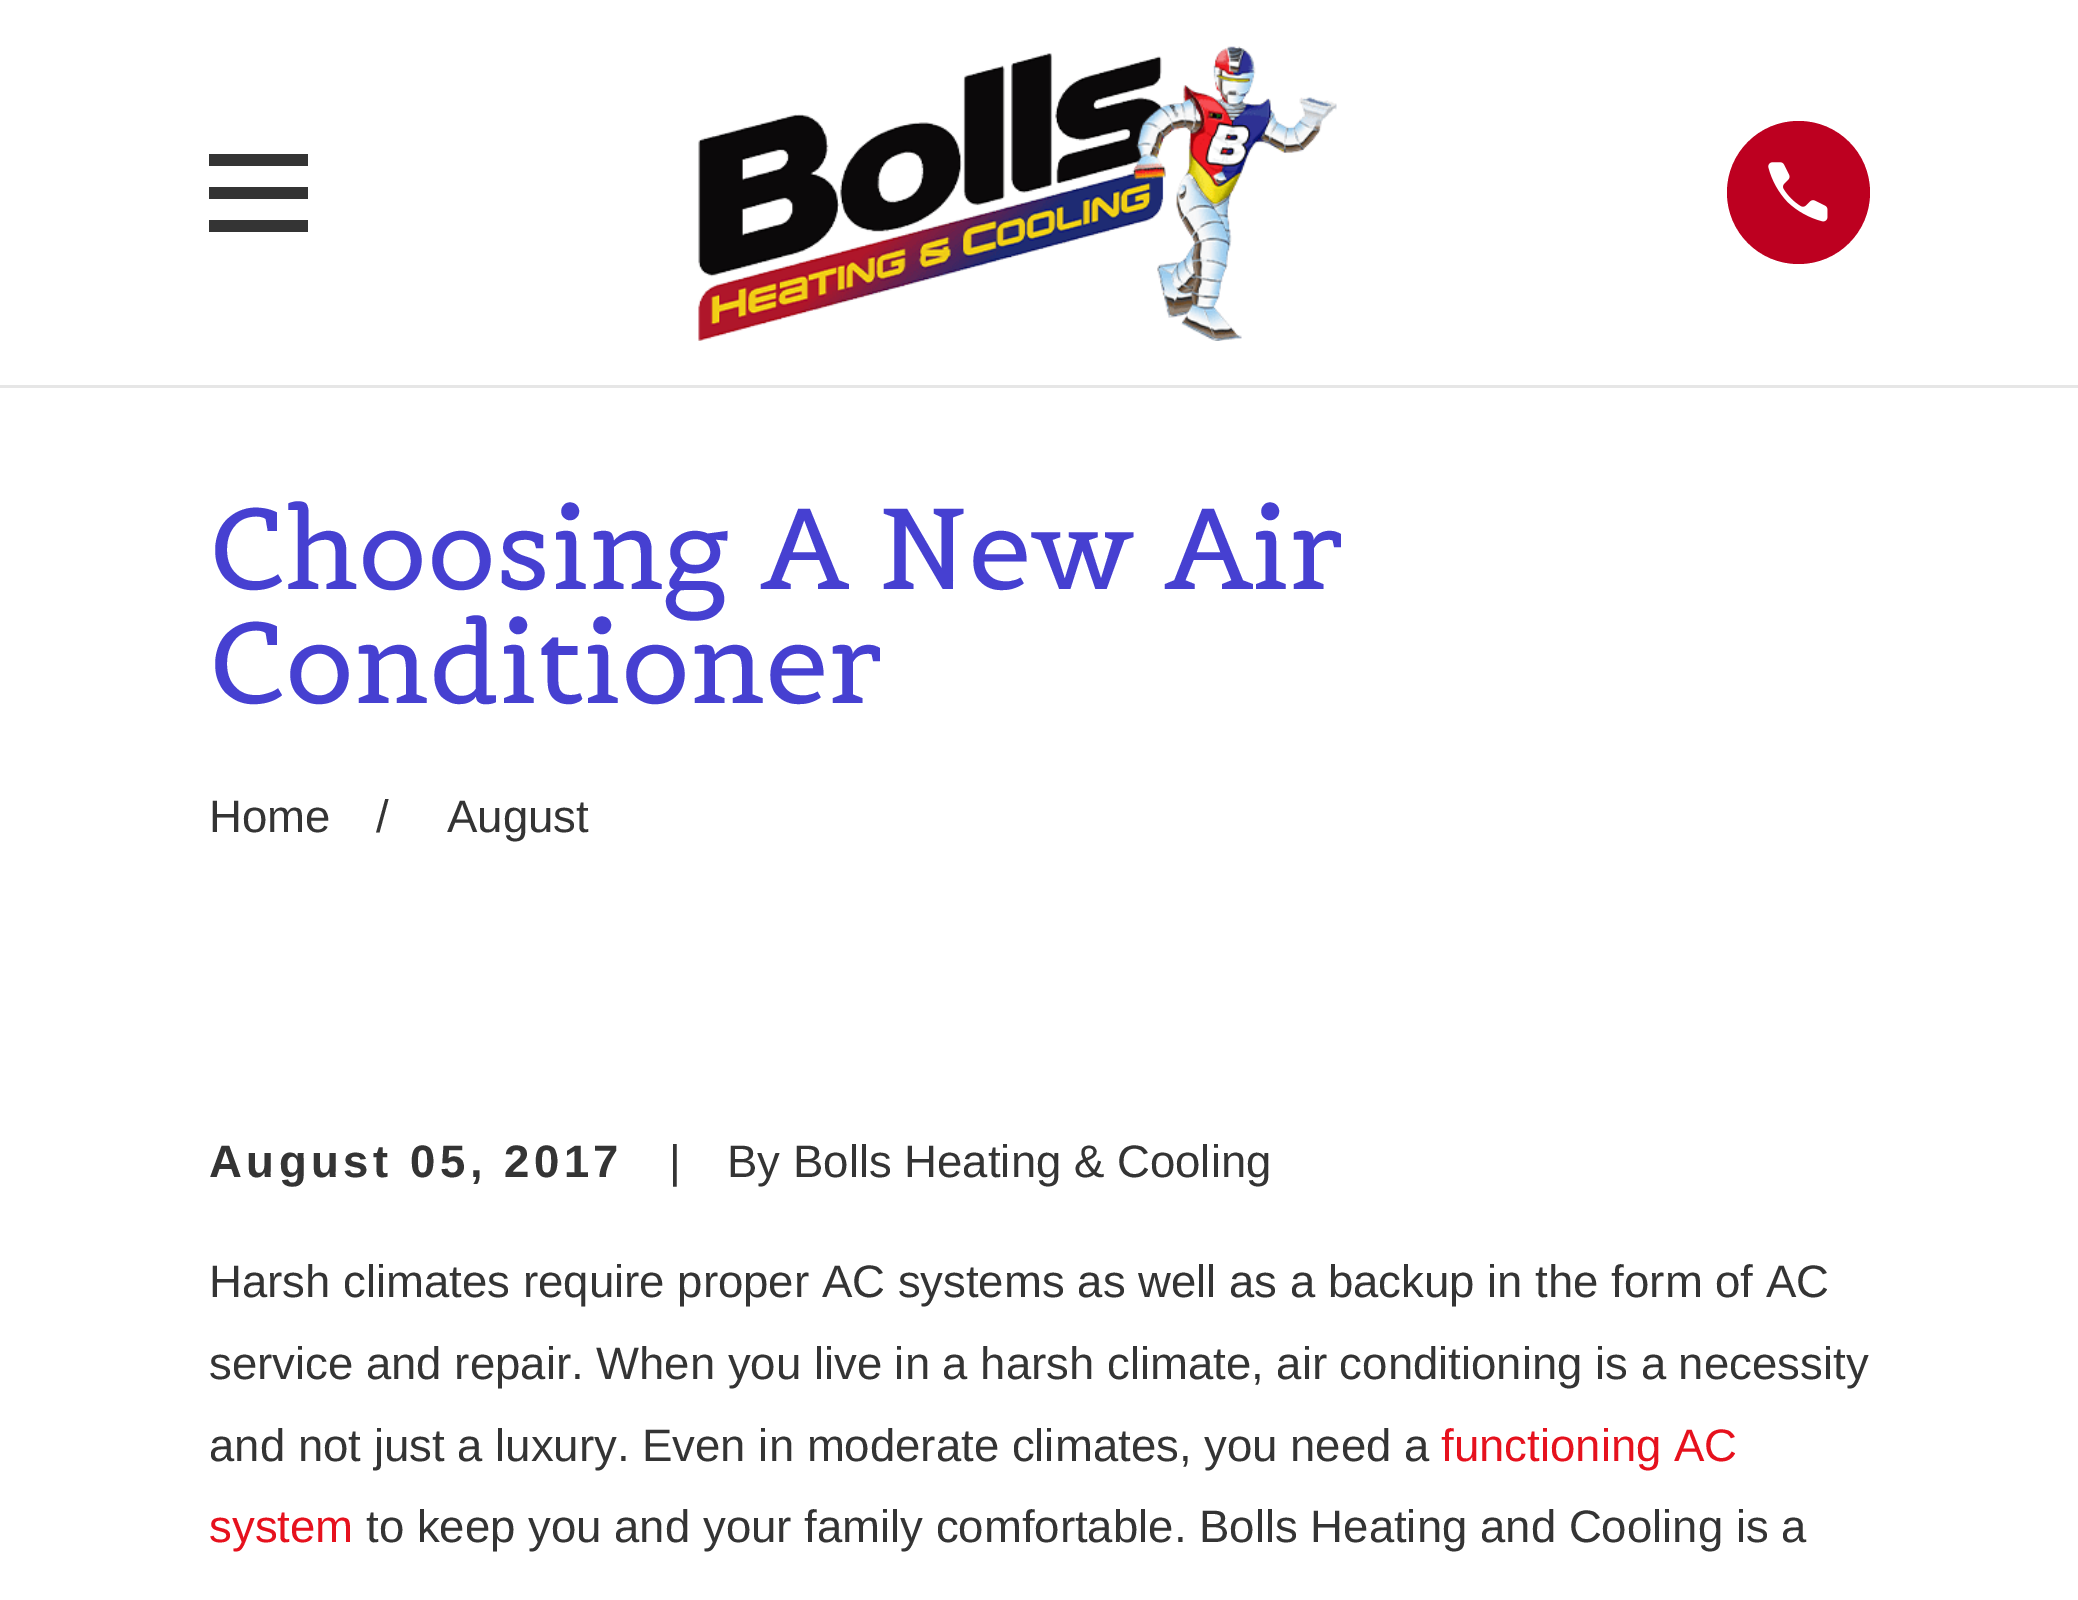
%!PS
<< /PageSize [2078 1600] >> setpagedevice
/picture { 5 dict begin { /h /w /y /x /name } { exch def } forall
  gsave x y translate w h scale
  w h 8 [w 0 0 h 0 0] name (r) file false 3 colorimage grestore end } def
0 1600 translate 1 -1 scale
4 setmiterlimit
1 setgray
0 0 2078 1600 rectfill
0.902 setgray
0 385 2078 3 rectfill
gsave
209 143 99 99 rectclip
0.204 setgray
newpath 209 154 moveto 209 166 lineto 309 166 lineto 309 154 lineto closepath 209 187 moveto 209 199 lineto 309 199 lineto 309 187 lineto closepath 209 220 moveto 209 232 lineto 309 232 lineto 309 220 lineto closepath fill
grestore
(img1.rgb) 698 46 639 295 picture
0.741 0 0.125 setrgbcolor
newpath 1798.5 192.5 71.5 0 360 arc closepath fill
(img2.rgb) 1768 162 60 60 picture
/Belgrano-Regular [113.9 0 0 -113.9 0 0] selectfont
0.275 0.251 0.82 setrgbcolor
209 589 moveto (Choosing A New Air) show
209 703 moveto (Conditioner) show
/Arimo-Regular [45.55 0 0 -45.55 0 0] selectfont
0.204 setgray
209 832 moveto (Home) show
376 832 moveto (/) show
447 832 moveto (August) show
/Arimo-Bold [45.55 0 0 -45.55 0 0] selectfont
209 1177 moveto 4.5 0 (August 05, 2017) ashow
/Arimo-Regular [45.55 0 0 -45.55 0 0] selectfont
669 1177 moveto (|) show
727 1177 moveto (By Bolls Heating & Cooling) show
209 1297 moveto (Harsh climates require proper AC systems as well as a backup in the form of AC) show
209 1379 moveto -0.1 0 32 (service and repair. When you live in a harsh climate, air conditioning is a necessity) widthshow
209 1461 moveto (and not just a luxury. Even in moderate climates, you need a) show
0.902 0.067 0.114 setrgbcolor
1441 1461 moveto (functioning AC) show
209 1542 moveto (system) show
0.204 setgray
366 1542 moveto (to keep you and your family comfortable. Bolls Heating and Cooling is a) show
showpage
